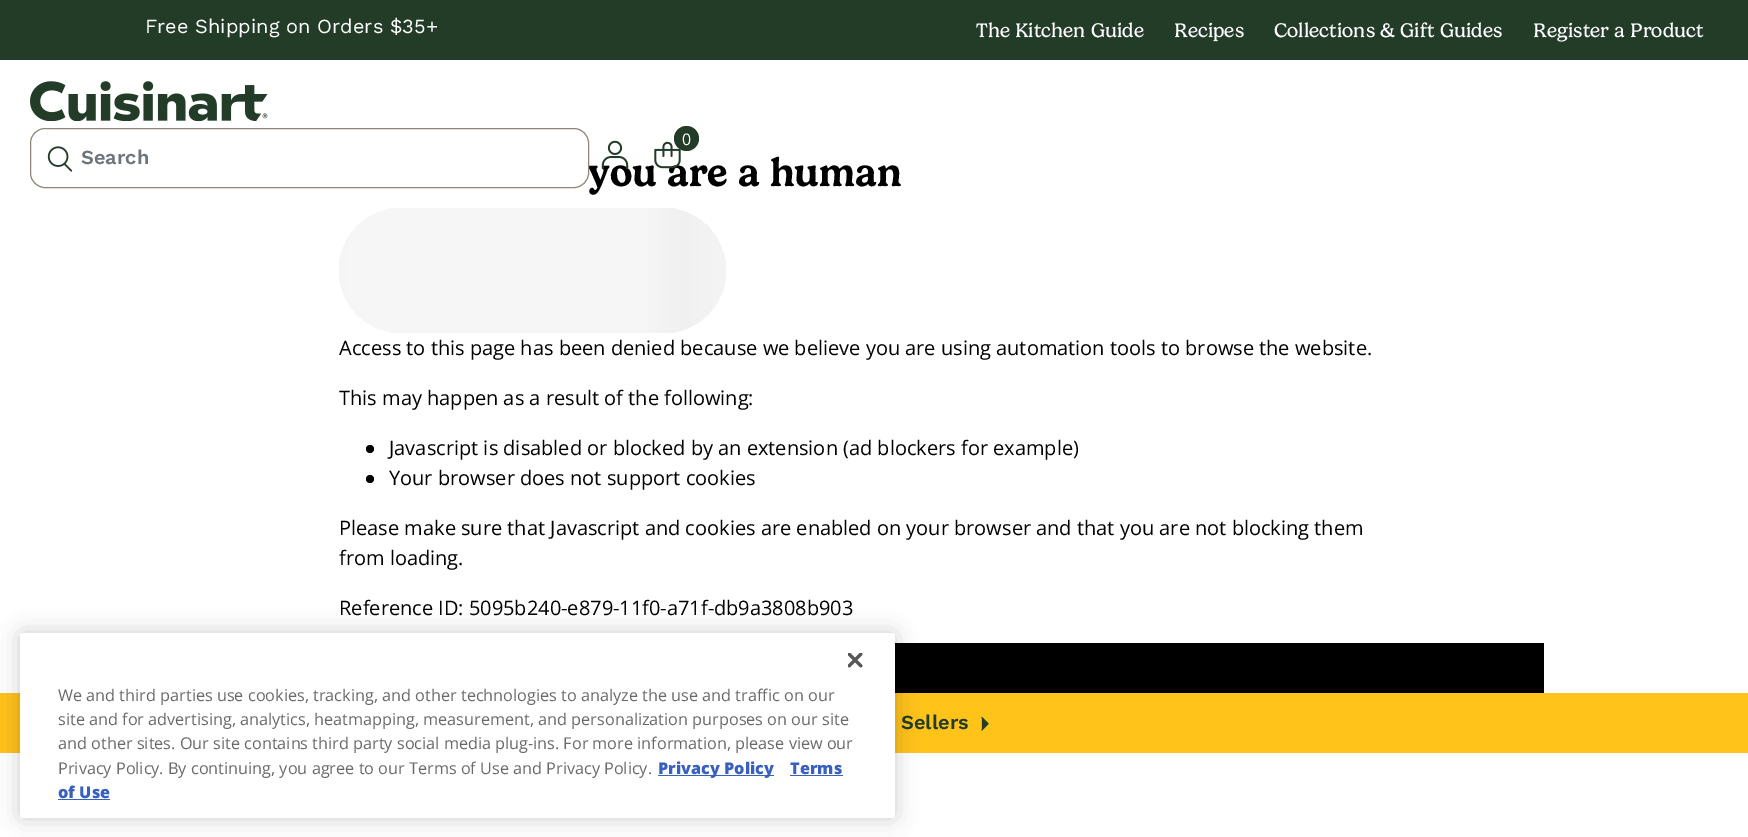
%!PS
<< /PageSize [1748 837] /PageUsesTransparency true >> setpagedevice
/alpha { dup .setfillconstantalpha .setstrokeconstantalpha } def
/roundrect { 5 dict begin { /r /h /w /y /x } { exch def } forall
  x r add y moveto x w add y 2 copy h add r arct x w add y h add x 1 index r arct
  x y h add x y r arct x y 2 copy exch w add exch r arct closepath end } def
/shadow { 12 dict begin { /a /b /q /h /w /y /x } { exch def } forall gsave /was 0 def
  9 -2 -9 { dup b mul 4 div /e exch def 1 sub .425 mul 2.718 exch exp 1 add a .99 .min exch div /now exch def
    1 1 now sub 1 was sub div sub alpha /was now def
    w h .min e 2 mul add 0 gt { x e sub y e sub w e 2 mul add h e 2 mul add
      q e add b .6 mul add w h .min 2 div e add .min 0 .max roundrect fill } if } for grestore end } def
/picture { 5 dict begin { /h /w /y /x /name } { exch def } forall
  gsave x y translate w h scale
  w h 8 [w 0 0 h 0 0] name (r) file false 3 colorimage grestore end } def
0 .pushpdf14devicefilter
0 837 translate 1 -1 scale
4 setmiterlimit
1 setgray
0 0 1748 837 rectfill
0.137 0.235 0.157 setrgbcolor
0 0 1748 60 rectfill
/WorkSans-Regular [20 0 0 -20 0 0] selectfont
1 setgray
145 33 moveto (Free Shipping on Orders $35+) show
/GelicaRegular-Regular [20 0 0 -20 0 0] selectfont
976 37 moveto (The Kitchen Guide) show
1174 37 moveto (Recipes) show
1274 37 moveto (Collections & Gift Guides) show
1533 37 moveto (Register a Product) show
(img1.rgb) 30 81 238 40 picture
/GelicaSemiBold-SemiBold [40 0 0 -40 0 0] selectfont
0 setgray
588 186 moveto (you are a human) show
(img2.rgb) 601 140 28 30 picture
(img3.rgb) 654 141 27 28 picture
0.137 0.235 0.157 setrgbcolor
newpath 686.5 138.5 12.5 0 360 arc closepath fill
/OpenSans-Regular [16 0 0 -16 0 0] selectfont
1 setgray
682 145 moveto (0) show
31 129 557 57 14 roundrect fill
0.561 0.522 0.475 setrgbcolor
30.5 128.5 558 59 14.5 roundrect stroke
(img4.rgb) 47 146 26 26 picture
/WorkSans-SemiBold [20 0 0 -20 0 0] selectfont
0.424 0.459 0.49 setrgbcolor
81 164 moveto (Search) show
gsave newpath 401.5 208 moveto 613 208 lineto 613 333 lineto 401.5 333 lineto 367 333 339 305 339 270.5 curveto 339 236 367 208 401.5 208 curveto closepath clip newpath
<< /ShadingType 2 /ColorSpace /DeviceRGB /Coords [226 270 613 270] /Extend [true true] /Function << /FunctionType 3 /Domain [0 1] /Functions [<< /FunctionType 2 /Domain [0 1] /C0 [0.965 0.965 0.965] /C1 [0.965 0.965 0.965] /N 1 >> << /FunctionType 2 /Domain [0 1] /C0 [0.965 0.965 0.965] /C1 [0.941 0.941 0.941] /N 1 >> << /FunctionType 2 /Domain [0 1] /C0 [0.941 0.941 0.941] /C1 [0.965 0.965 0.965] /N 1 >> << /FunctionType 2 /Domain [0 1] /C0 [0.965 0.965 0.965] /C1 [0.965 0.965 0.965] /N 1 >>] /Bounds [0.08 0.18 0.33] /Encode [0 1 0 1 0 1 0 1] >> >> shfill grestore
gsave newpath 613 208 moveto 663.5 208 lineto 698 208 726 236 726 270.5 curveto 726 305 698 333 663.5 333 curveto 613 333 lineto closepath clip newpath
<< /ShadingType 2 /ColorSpace /DeviceRGB /Coords [613 270 1001 270] /Extend [true true] /Function << /FunctionType 3 /Domain [0 1] /Functions [<< /FunctionType 2 /Domain [0 1] /C0 [0.965 0.965 0.965] /C1 [0.965 0.965 0.965] /N 1 >> << /FunctionType 2 /Domain [0 1] /C0 [0.965 0.965 0.965] /C1 [0.941 0.941 0.941] /N 1 >> << /FunctionType 2 /Domain [0 1] /C0 [0.941 0.941 0.941] /C1 [0.965 0.965 0.965] /N 1 >> << /FunctionType 2 /Domain [0 1] /C0 [0.965 0.965 0.965] /C1 [0.965 0.965 0.965] /N 1 >>] /Bounds [0.08 0.18 0.33] /Encode [0 1 0 1 0 1 0 1] >> >> shfill grestore
/OpenSans-Regular [20 0 0 -20 0 0] selectfont
0 setgray
339 355 moveto (Access to this page has been denied because we believe you are using automation tools to browse the website.) show
339 405 moveto (This may happen as a result of the following:) show
newpath 370 449 4 0 360 arc closepath fill
389 455 moveto (Javascript is disabled or blocked by an extension \(ad blockers for example\)) show
newpath 370 479 4 0 360 arc closepath fill
389 485 moveto (Your browser does not support cookies) show
339 535 moveto (Please make sure that Javascript and cookies are enabled on your browser and that you are not blocking them) show
339 565 moveto (from loading.) show
339 615 moveto (Reference ID: 5095b240-e879-11f0-a71f-db9a3808b903) show
895 643 649 50 rectfill
1 0.765 0.102 setrgbcolor
0 693 1748 60 rectfill
/WorkSans-SemiBold [20 0 0 -20 0 0] selectfont
0.137 0.235 0.157 setrgbcolor
901 729 moveto (Sellers) show
(img5.rgb) 981 716 8 15 picture
0 setgray
20 633 875 185 3 11 0.2 shadow
1 setgray
20 633 875 185 3 roundrect fill
(img6.rgb) 848 653 15 15 picture
/OpenSans-Regular [16.25 0 0 -16.25 0 0] selectfont
0.412 setgray
58 701 moveto (We and third parties use cookies, tracking, and other technologies to analyze the use and traffic on our) show
58 725 moveto (site and for advertising, analytics, heatmapping, measurement, and personalization purposes on our site) show
58 749 moveto (and other sites. Our site contains third party social media plug-ins. For more information, please view our) show
58 774 moveto (Privacy Policy. By continuing, you agree to our Terms of Use and Privacy Policy.) show
0.22 0.376 0.745 setrgbcolor
658 775 116 1 rectfill
/OpenSans-ExtraBold [16.25 0 0 -16.25 0 0] selectfont
658 774 moveto (Privacy Policy) show
790 774 moveto (Terms) show
790 775 53 1 rectfill
58 798 moveto (of Use) show
58 799 52 1 rectfill
.poppdf14devicefilter showpage
